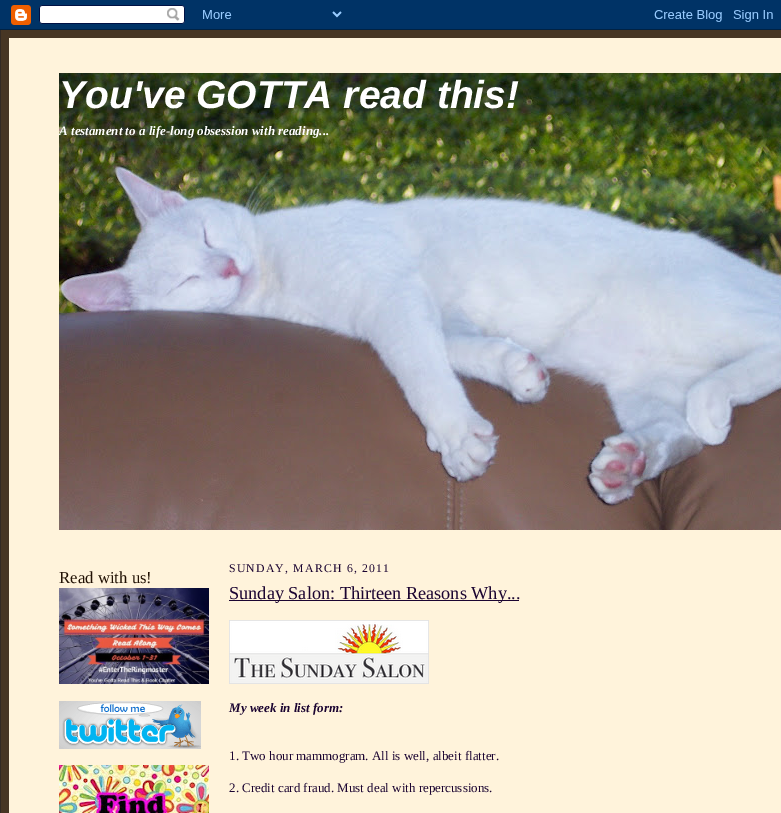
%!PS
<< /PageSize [781 813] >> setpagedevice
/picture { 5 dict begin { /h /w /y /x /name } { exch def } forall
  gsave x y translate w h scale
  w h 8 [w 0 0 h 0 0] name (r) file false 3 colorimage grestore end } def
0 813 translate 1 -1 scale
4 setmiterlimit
0.278 0.212 0.141 setrgbcolor
0 0 781 813 rectfill
(img1.rgb) 0 0 781 30 picture
0.2 0.165 0.141 setrgbcolor
0 30 1 783 rectfill
1 0.953 0.859 setrgbcolor
9 38 772 775 rectfill
(img2.rgb) 59 73 722 457 picture
/LiberationSans-BoldItalic [39 0 0 -39 0 0] selectfont
1 setgray
59 108 moveto (You've GOTTA read this!) show
/LiberationSerif-BoldItalic [13 0 0 -13 0 0] selectfont
59 135 moveto (A testament to a life-long obsession with reading...) show
/LiberationSerif-Regular [16.75 0 0 -16.75 0 0] selectfont
0.129 0.067 0.016 setrgbcolor
59 583 moveto (Read with us!) show
(img3.rgb) 59 588 150 96 picture
(img4.rgb) 59 701 142 48 picture
(img5.rgb) 59 765 150 48 picture
/LiberationSerif-Regular [11.75 0 0 -11.75 0 0] selectfont
0.106 0.016 0.192 setrgbcolor
229 572 moveto 1.2 0 (SUNDAY, MARCH 6, 2011) ashow
229 600 290 1 rectfill
/LiberationSerif-Regular [18.25 0 0 -18.25 0 0] selectfont
229 599 moveto (Sunday Salon: Thirteen Reasons Why...) show
(img6.rgb) 229 620 200 64 picture
/LiberationSerif-BoldItalic [13 0 0 -13 0 0] selectfont
229 712 moveto (My week in list form:) show
/LiberationSerif-Regular [13 0 0 -13 0 0] selectfont
229 760 moveto (1. Two hour mammogram. All is well, albeit flatter.) show
229 792 moveto (2. Credit card fraud. Must deal with repercussions.) show
showpage
